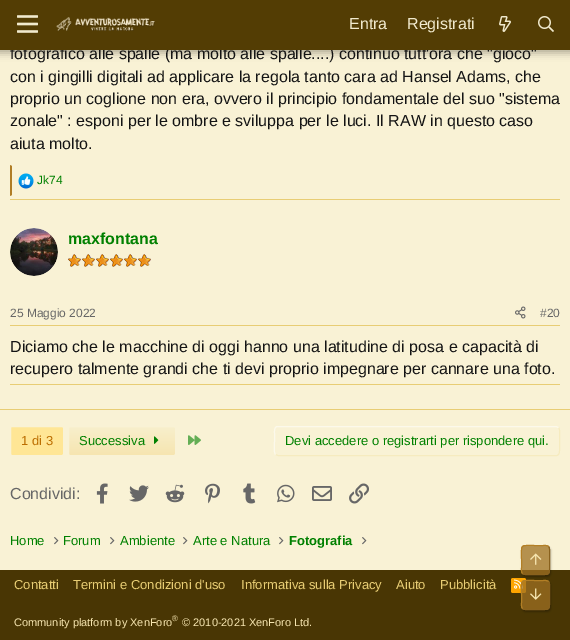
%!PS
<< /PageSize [570 640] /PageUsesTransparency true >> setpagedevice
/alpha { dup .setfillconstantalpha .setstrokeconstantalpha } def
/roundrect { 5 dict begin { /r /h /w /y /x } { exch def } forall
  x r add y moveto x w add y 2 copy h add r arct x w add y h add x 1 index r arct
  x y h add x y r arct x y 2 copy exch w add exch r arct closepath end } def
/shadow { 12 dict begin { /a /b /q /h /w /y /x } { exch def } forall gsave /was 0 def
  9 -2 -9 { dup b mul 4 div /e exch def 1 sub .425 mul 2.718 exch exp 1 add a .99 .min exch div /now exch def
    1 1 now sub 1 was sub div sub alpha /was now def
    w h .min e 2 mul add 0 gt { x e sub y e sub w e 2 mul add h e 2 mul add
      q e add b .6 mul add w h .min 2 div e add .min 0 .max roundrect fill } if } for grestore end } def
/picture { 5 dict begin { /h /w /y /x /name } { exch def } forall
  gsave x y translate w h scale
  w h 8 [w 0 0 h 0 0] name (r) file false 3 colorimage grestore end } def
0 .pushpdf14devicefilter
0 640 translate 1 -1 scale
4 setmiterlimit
0.976 0.949 0.835 setrgbcolor
0 0 570 640 rectfill
0 setgray
-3 -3 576 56 0 4 0.3 shadow
/LiberationSans-Regular [16 0 0 -16 0 0] selectfont
0.078 setgray
10 59 moveto (fotografico alle spalle \(ma molto alle spalle....\) continuo tutt'ora che "gioco") show
0.325 0.239 0.016 setrgbcolor
0 0 570 50 rectfill
(img1.rgb) 17 15 21 18 picture
(img2.rgb) 56 17 99 14 picture
0.945 0.918 0.808 setrgbcolor
349 29 moveto (Entra) show
407 29 moveto (Registrati) show
(img3.rgb) 499 16 12 16 picture
(img4.rgb) 538 16 16 16 picture
0.078 setgray
10 82 moveto (con i gingilli digitali ad applicare la regola tanto cara ad Hansel Adams, che) show
10 104 moveto (proprio un coglione non era, ovvero il principio fondamentale del suo "sistema) show
10 126 moveto (zonale" : esponi per le ombre e sviluppa per le luci. Il RAW in questo caso) show
10 149 moveto (aiuta molto.) show
0.69 0.49 0.145 setrgbcolor
newpath 10 196 moveto 10 165 lineto 12 166 lineto 12 195 lineto closepath fill
(img5.rgb) 18 173 16 16 picture
/LiberationSans-Regular [12 0 0 -12 0 0] selectfont
0 0.502 0 setrgbcolor
37 184 moveto (Jk74) show
0.91 0.804 0.455 setrgbcolor
10 199 550 1 rectfill
(img6.rgb) 10 228 48 48 picture
/LiberationSans-Bold [16 0 0 -16 0 0] selectfont
0 0.502 0 setrgbcolor
68 244 moveto (maxfontana) show
(img7.rgb) 68 254 83 13 picture
0.91 0.804 0.455 setrgbcolor
10 325 550 1 rectfill
/LiberationSans-Regular [12 0 0 -12 0 0] selectfont
0.404 setgray
10 317 moveto (25 Maggio 2022) show
(img8.rgb) 515 306 11 13 picture
540 317 moveto (#20) show
/LiberationSans-Regular [16 0 0 -16 0 0] selectfont
0.078 setgray
10 352 moveto (Diciamo che le macchine di oggi hanno una latitudine di posa e capacità di) show
10 374 moveto (recupero talmente grandi che ti devi proprio impegnare per cannare una foto.) show
0.91 0.804 0.455 setrgbcolor
10 384 550 1 rectfill
0 409 570 1 rectfill
1 0.902 0.584 setrgbcolor
10.5 426.5 53 29 1.5 roundrect gsave fill grestore
0.976 0.949 0.835 setrgbcolor
stroke
/LiberationSans-Regular [13 0 0 -13 0 0] selectfont
0.737 0.431 0 setrgbcolor
21 445 moveto (1 di 3) show
gsave
68 426 108 30 2 roundrect clip newpath
gsave newpath 68 427 moveto 176 427 lineto 176 455 lineto 68 455 lineto closepath clip newpath
<< /ShadingType 2 /ColorSpace /DeviceRGB /Coords [122 455 122 427] /Extend [true true] /Function << /FunctionType 2 /Domain [0 1] /C0 [0.965 0.898 0.69] /C1 [0.973 0.937 0.8] /N 1 >> >> shfill grestore
grestore
0.976 0.949 0.835 setrgbcolor
68.5 426.5 107 29 1.5 roundrect stroke
0 0.502 0 setrgbcolor
79 445 moveto (Successiva) show
(img9.rgb) 154 436 5 8 picture
(img10.rgb) 188 435 13 10 picture
0.965 0.922 0.749 setrgbcolor
newpath 558.5 427.5 moveto 560.5 429.5 559.5 438 559.5 441 curveto 559.5 448.5 lineto 559.5 451 560 454.5 557 455.5 curveto 278 455.5 lineto 275.5 454.5 lineto stroke
0.988 0.976 0.922 setrgbcolor
newpath 275.5 454.5 moveto 273.5 452.5 274.5 444 274.5 441 curveto 274.5 433.5 lineto 274.5 431 274 427.5 277 426.5 curveto 556 426.5 lineto 558.5 427.5 lineto stroke
0 0.502 0 setrgbcolor
285 445 moveto (Devi accedere o registrarti per rispondere qui.) show
/LiberationSans-Regular [16 0 0 -16 0 0] selectfont
0.404 setgray
10 499 moveto (Condividi:) show
(img11.rgb) 96 483 12 21 picture
(img12.rgb) 129 485 20 17 picture
(img13.rgb) 165 484 20 19 picture
(img14.rgb) 205 483 15 21 picture
(img15.rgb) 243 483 13 21 picture
(img16.rgb) 277 484 18 19 picture
(img17.rgb) 312 486 20 15 picture
(img18.rgb) 349 483 20 21 picture
/LiberationSans-Regular [13 0 0 -13 0 0] selectfont
0 0.502 0 setrgbcolor
10 545 moveto (Home) show
(img19.rgb) 54 537 5 8 picture
63 545 moveto (Forum) show
(img19.rgb) 110 537 5 8 picture
120 545 moveto (Ambiente) show
(img19.rgb) 183 537 5 8 picture
193 545 moveto (Arte e Natura) show
(img19.rgb) 279 537 5 8 picture
/LiberationSans-Bold [13 0 0 -13 0 0] selectfont
289 545 moveto (Fotografia) show
(img19.rgb) 362 537 5 8 picture
0.286 0.212 0.016 setrgbcolor
0 570 570 70 rectfill
/LiberationSans-Regular [13 0 0 -13 0 0] selectfont
0.91 0.804 0.455 setrgbcolor
14 589 moveto (Contatti) show
73 589 moveto (Termini e Condizioni d'uso) show
241 589 moveto (Informativa sulla Privacy) show
396 589 moveto (Aiuto) show
440 589 moveto (Pubblicità) show
1 0.647 0 setrgbcolor
511 578 15 15 2 roundrect fill
(img20.rgb) 514 579 10 10 picture
/LiberationSans-Regular [11 0 0 -11 0 0] selectfont
0.965 0.898 0.69 setrgbcolor
14 626 moveto (Community platform by XenForo) show
/LiberationSans-Regular [8 0 0 -8 0 0] selectfont
172 621 moveto (®) show
/LiberationSans-Regular [11 0 0 -11 0 0] selectfont
182 626 moveto (© 2010-2021 XenForo Ltd.) show
gsave
newpath 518 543 moveto 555 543 lineto 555 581 lineto 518 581 lineto closepath 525 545 moveto 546 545 lineto 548 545 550 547 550 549 curveto 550 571 lineto 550 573 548 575 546 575 curveto 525 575 lineto 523 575 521 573 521 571 curveto 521 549 lineto 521 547 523 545 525 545 curveto closepath eoclip newpath
0 setgray
522 547 29 30 4 1 0.25 shadow
grestore
0.75 alpha
0.62 0.439 0.129 setrgbcolor
521 545 29 30 4 roundrect fill
1 alpha
0.537 0.38 0.114 setrgbcolor
newpath 548.5 546.5 moveto 550 548 549.5 551 549.5 552.5 curveto 549.5 560 lineto 549.5 576.5 551.5 574.5 535.5 574.5 curveto 528.5 574.5 lineto 526.5 574.5 524 575 522.5 573.5 curveto stroke
0.702 0.498 0.145 setrgbcolor
newpath 522.5 573.5 moveto 521 572 521.5 569 521.5 567.5 curveto 521.5 560 lineto 521.5 543.5 519.5 545.5 535.5 545.5 curveto 542.5 545.5 lineto 544.5 545.5 547 545 548.5 546.5 curveto stroke
(img21.rgb) 530 553 12 12 picture
gsave
newpath 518 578 moveto 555 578 lineto 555 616 lineto 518 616 lineto closepath 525 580 moveto 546 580 lineto 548 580 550 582 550 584 curveto 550 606 lineto 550 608 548 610 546 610 curveto 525 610 lineto 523 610 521 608 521 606 curveto 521 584 lineto 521 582 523 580 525 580 curveto closepath eoclip newpath
0 setgray
522 582 29 30 4 1 0.25 shadow
grestore
0.75 alpha
0.62 0.439 0.129 setrgbcolor
521 580 29 30 4 roundrect fill
1 alpha
0.537 0.38 0.114 setrgbcolor
newpath 548.5 581.5 moveto 550 583 549.5 586 549.5 587.5 curveto 549.5 595 lineto 549.5 611.5 551.5 609.5 535.5 609.5 curveto 528.5 609.5 lineto 526.5 609.5 524 610 522.5 608.5 curveto stroke
0.702 0.498 0.145 setrgbcolor
newpath 522.5 608.5 moveto 521 607 521.5 604 521.5 602.5 curveto 521.5 595 lineto 521.5 578.5 519.5 580.5 535.5 580.5 curveto 542.5 580.5 lineto 544.5 580.5 547 580 548.5 581.5 curveto stroke
(img22.rgb) 530 588 12 12 picture
.poppdf14devicefilter showpage
